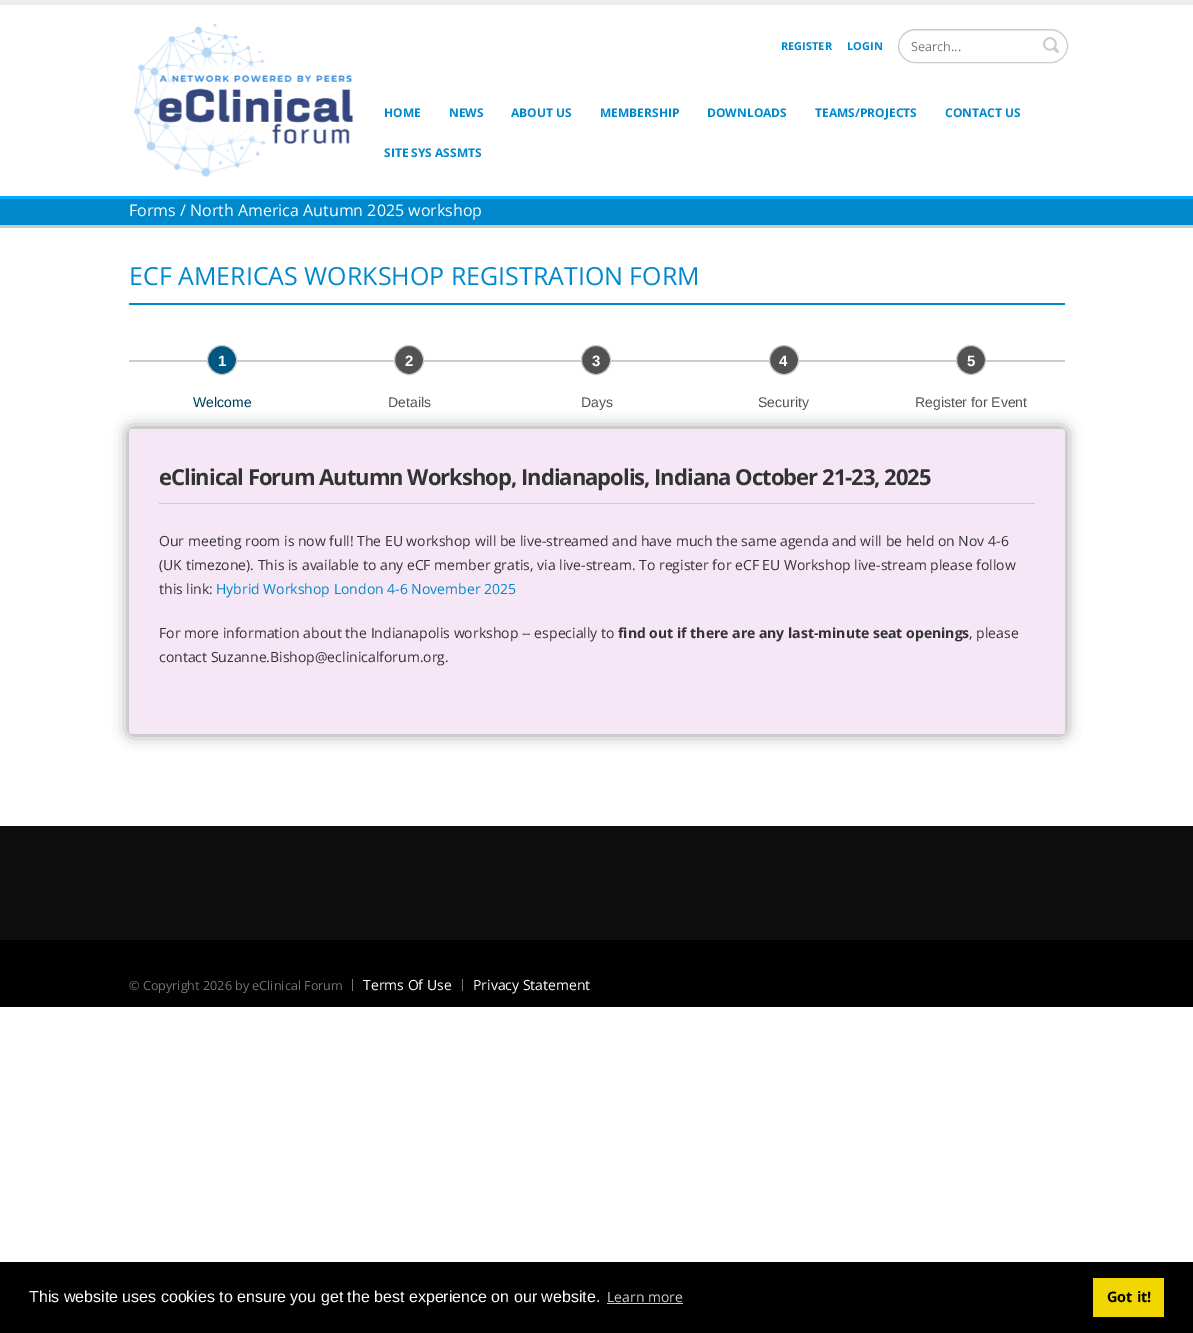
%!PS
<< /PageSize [1193 1333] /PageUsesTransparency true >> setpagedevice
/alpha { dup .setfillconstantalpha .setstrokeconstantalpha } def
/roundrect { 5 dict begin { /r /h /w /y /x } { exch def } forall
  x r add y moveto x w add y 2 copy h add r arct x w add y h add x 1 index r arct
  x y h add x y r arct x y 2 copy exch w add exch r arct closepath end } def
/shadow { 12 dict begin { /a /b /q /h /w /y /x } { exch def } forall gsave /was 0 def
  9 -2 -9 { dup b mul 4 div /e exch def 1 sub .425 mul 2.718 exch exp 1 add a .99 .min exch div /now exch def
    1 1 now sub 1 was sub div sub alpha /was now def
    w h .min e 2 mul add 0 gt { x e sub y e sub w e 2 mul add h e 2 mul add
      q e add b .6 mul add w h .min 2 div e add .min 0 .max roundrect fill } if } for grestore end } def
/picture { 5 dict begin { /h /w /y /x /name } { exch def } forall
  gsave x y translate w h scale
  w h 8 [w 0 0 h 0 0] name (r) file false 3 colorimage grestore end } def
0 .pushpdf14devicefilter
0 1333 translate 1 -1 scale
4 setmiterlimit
1 setgray
0 0 1193 1333 rectfill
0.929 setgray
0 0 1193 5 rectfill
(img1.rgb) 133 23 221 154 picture
/OpenSans-Bold [11 0 0 -11 0 0] selectfont
0 0.533 0.8 setrgbcolor
781 50 moveto (REGISTER) show
847 50 moveto (LOGIN) show
0.925 setgray
newpath 915 31 moveto 1051 31 lineto 1060 31 1067 38 1067 46 curveto 1067 37 1060 30 1051 30 curveto 915 30 lineto 906 30 899 37 899 46 curveto 899 38 906 31 915 31 curveto closepath fill
0.8 setgray
898.5 29.5 169 33 16.5 roundrect stroke
/OpenSans-Regular [12.6 0 0 -12.6 0 0] selectfont
0.459 setgray
911 51 moveto (Search...) show
(img2.rgb) 1043 37 16 16 picture
/OpenSans-Bold [12 0 0 -12 0 0] selectfont
0 0.533 0.8 setrgbcolor
384 117 moveto (HOME) show
449 117 moveto (NEWS) show
511 117 moveto (ABOUT US) show
600 117 moveto (MEMBERSHIP) show
707 117 moveto (DOWNLOADS) show
815 117 moveto (TEAMS/PROJECTS) show
945 117 moveto (CONTACT US) show
384 157 moveto (SITE SYS ASSMTS) show
0 199 1193 26 rectfill
0 0.667 1 setrgbcolor
0 196 1193 3 rectfill
0.8 setgray
0 225 1193 3 rectfill
/OpenSans-Regular [16 0 0 -16 0 0] selectfont
1 setgray
129 216 moveto (Forms / North America Autumn 2025 workshop) show
0 0.533 0.8 setrgbcolor
129 303 936 2 rectfill
/OpenSans-Regular [25 0 0 -25 0 0] selectfont
129 285 moveto (ECF AMERICAS WORKSHOP REGISTRATION FORM) show
0.8 setgray
129 360 936 2 rectfill
0 0.341 0.506 setrgbcolor
newpath 222 360 14.5 0 360 arc closepath gsave fill grestore
0.8 setgray
stroke
/LiberationSans-Bold [15 0 0 -15 0 0] selectfont
1 setgray
218 366 moveto (1) show
0.322 setgray
newpath 409 360 14.5 0 360 arc closepath gsave fill grestore
0.8 setgray
stroke
1 setgray
405 366 moveto (2) show
0.322 setgray
newpath 596 360 14.5 0 360 arc closepath gsave fill grestore
0.8 setgray
stroke
1 setgray
592 366 moveto (3) show
0.322 setgray
newpath 784 360 14.5 0 360 arc closepath gsave fill grestore
0.8 setgray
stroke
1 setgray
779 366 moveto (4) show
0.322 setgray
newpath 971 360 14.5 0 360 arc closepath gsave fill grestore
0.8 setgray
stroke
1 setgray
967 366 moveto (5) show
/LiberationSans-Regular [14 0 0 -14 0 0] selectfont
0 0.231 0.345 setrgbcolor
193 407 moveto (Welcome) show
0.322 setgray
388 407 moveto (Details) show
581 407 moveto (Days) show
758 407 moveto (Security) show
915 407 moveto (Register for Event) show
0 setgray
128 428 938 307 4 7.5 0.4 shadow
0.961 0.906 0.961 setrgbcolor
129 429 936 305 3 roundrect fill
0.8 setgray
159 503 876 1 rectfill
/OpenSans-Bold [22 0 0 -22 0 0] selectfont
0.2 setgray
159 485 moveto -1 0 (eClinical Forum Autumn Workshop, Indianapolis, Indiana October 21-23, 2025) ashow
/OpenSans-Regular [14 0 0 -14 0 0] selectfont
159 546 moveto (Our meeting room is now full! The EU workshop will be live-streamed and have much the same agenda and will be held on Nov 4-6) show
159 570 moveto (\(UK timezone\). This is available to any eCF member gratis, via live-stream. To register for eCF EU Workshop live-stream please follow) show
159 594 moveto (this link:) show
0 0.533 0.8 setrgbcolor
216 594 moveto (Hybrid Workshop London 4-6 November 2025) show
0.2 setgray
159 638 moveto (For more information about the Indianapolis workshop -- especially to) show
/OpenSans-Bold [14 0 0 -14 0 0] selectfont
618 638 moveto (find out if there are any last-minute seat openings) show
/OpenSans-Regular [14 0 0 -14 0 0] selectfont
969 638 moveto (, please) show
159 662 moveto (contact Suzanne.Bishop@eclinicalforum.org.) show
0.055 setgray
0 826 1193 114 rectfill
0.004 setgray
0 940 1193 67 rectfill
/OpenSans-Regular [12.6 0 0 -12.6 0 0] selectfont
0.459 setgray
129 990 moveto (© Copyright 2026 by eClinical Forum) show
0.467 setgray
352 979 1 12 rectfill
/OpenSans-Regular [14 0 0 -14 0 0] selectfont
1 setgray
363 990 moveto (Terms Of Use) show
0.467 setgray
462 979 1 12 rectfill
1 setgray
473 990 moveto (Privacy Statement) show
0 setgray
0 1262 1193 71 rectfill
/LiberationSans-Regular [16 0 0 -16 0 0] selectfont
1 setgray
29 1302 moveto (This website uses cookies to ensure you get the best experience on our website.) show
/OpenSans-Regular [14 0 0 -14 0 0] selectfont
0.8 setgray
607 1302 moveto (Learn more) show
607 1303 76 1 rectfill
0.945 0.839 0 setrgbcolor
1093 1278 71 39 rectfill
/OpenSans-Bold [14.5 0 0 -14.5 0 0] selectfont
0 setgray
1107 1302 moveto (Got it!) show
.poppdf14devicefilter showpage
